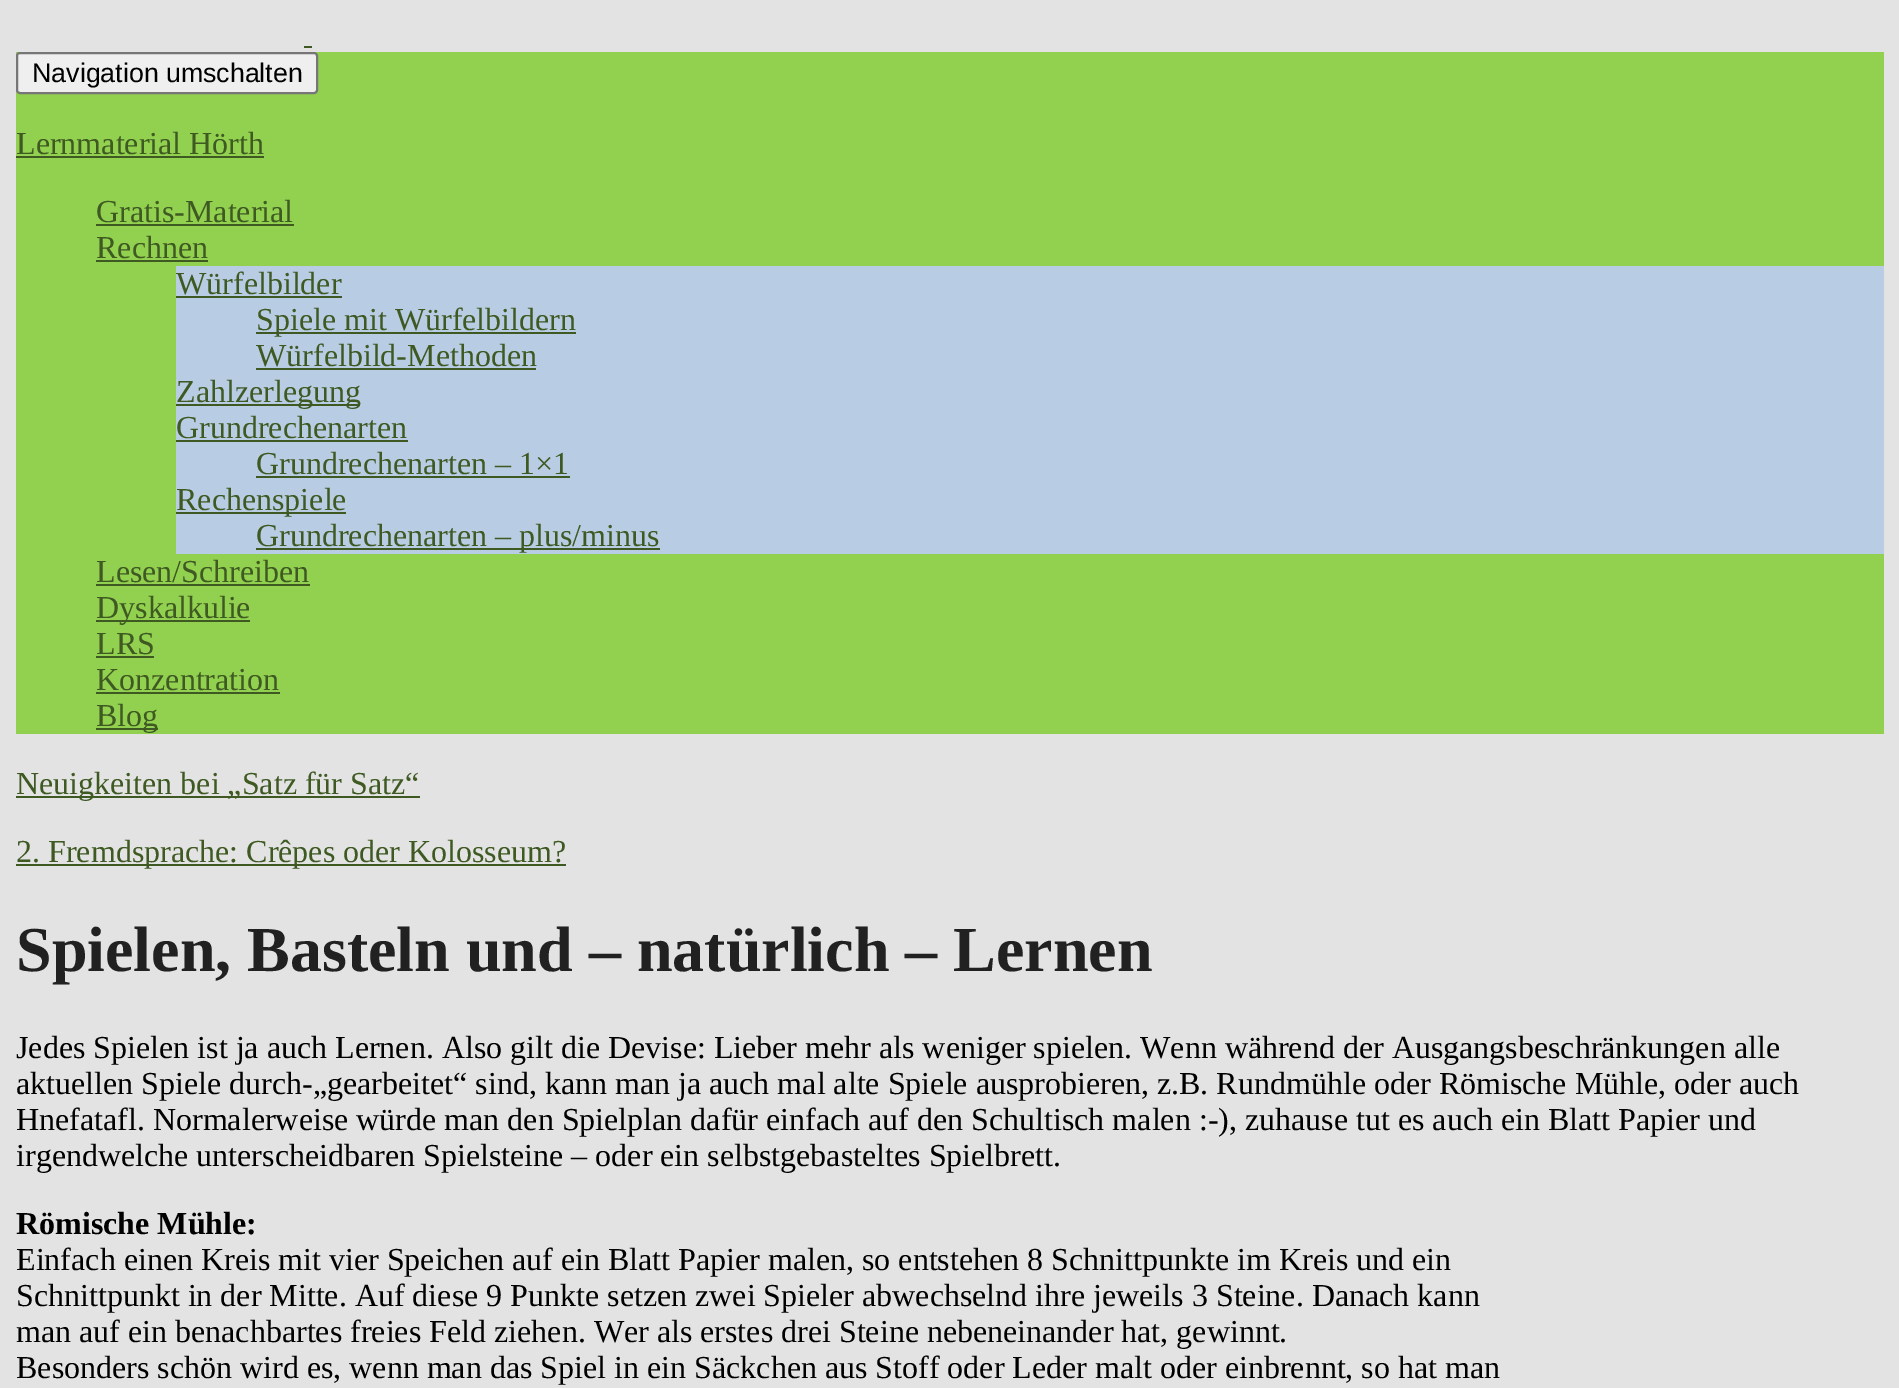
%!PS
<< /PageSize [1899 1388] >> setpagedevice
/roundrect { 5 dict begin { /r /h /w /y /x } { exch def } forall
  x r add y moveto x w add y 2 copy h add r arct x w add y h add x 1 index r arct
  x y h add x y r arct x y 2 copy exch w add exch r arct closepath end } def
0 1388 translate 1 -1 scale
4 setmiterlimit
0.89 setgray
0 0 1899 1388 rectfill
0.243 0.349 0.129 setrgbcolor
304 46 8 2 rectfill
0.573 0.816 0.314 setrgbcolor
16 52 1868 682 rectfill
0.937 setgray
17 53 300 40 3 roundrect gsave fill grestore
0.463 setgray
2 setlinewidth
stroke
/LiberationSans-Regular [26.75 0 0 -26.75 0 0] selectfont
0 setgray
32 82 moveto (Navigation umschalten) show
/LiberationSerif-Regular [32 0 0 -32 0 0] selectfont
0.243 0.349 0.129 setrgbcolor
16 154 moveto (Lernmaterial Hörth) show
16 156 248 2 rectfill
96 222 moveto (Gratis-Material) show
96 224 198 2 rectfill
96 258 moveto (Rechnen) show
96 260 112 2 rectfill
0.722 0.8 0.894 setrgbcolor
176 266 1708 288 rectfill
0.243 0.349 0.129 setrgbcolor
176 294 moveto (Würfelbilder) show
176 296 166 2 rectfill
256 332 320 2 rectfill
256 330 moveto (Spiele mit Würfelbildern) show
256 366 moveto (Würfelbild-Methoden) show
256 368 280 2 rectfill
176 404 184 2 rectfill
176 402 moveto (Zahlzerlegung) show
176 438 moveto (Grundrechenarten) show
176 440 232 2 rectfill
256 474 moveto (Grundrechenarten – 1×1) show
256 476 314 2 rectfill
176 512 170 2 rectfill
176 510 moveto (Rechenspiele) show
256 548 404 2 rectfill
256 546 moveto (Grundrechenarten – plus/minus) show
96 582 moveto (Lesen/Schreiben) show
96 584 214 2 rectfill
96 620 154 2 rectfill
96 618 moveto (Dyskalkulie) show
96 654 moveto (LRS) show
96 656 58 2 rectfill
96 690 moveto (Konzentration) show
96 692 184 2 rectfill
96 728 62 2 rectfill
96 726 moveto (Blog) show
16 796 404 2 rectfill
16 794 moveto (Neuigkeiten bei „Satz für Satz“) show
16 864 550 2 rectfill
16 862 moveto (2. Fremdsprache: Crêpes oder Kolosseum?) show
/LiberationSerif-Bold [64 0 0 -64 0 0] selectfont
0.129 setgray
16 971 moveto (Spielen, Basteln und – natürlich – Lernen) show
/LiberationSerif-Regular [32 0 0 -32 0 0] selectfont
0 setgray
16 1058 moveto (Jedes Spielen ist ja auch Lernen. Also gilt die Devise: Lieber mehr als weniger spielen. Wenn während der Ausgangsbeschränkungen alle) show
16 1094 moveto (aktuellen Spiele durch-„gearbeitet“ sind, kann man ja auch mal alte Spiele ausprobieren, z.B. Rundmühle oder Römische Mühle, oder auch) show
16 1130 moveto (Hnefatafl. Normalerweise würde man den Spielplan dafür einfach auf den Schultisch malen :-\), zuhause tut es auch ein Blatt Papier und) show
16 1166 moveto (irgendwelche unterscheidbaren Spielsteine – oder ein selbstgebasteltes Spielbrett.) show
/LiberationSerif-Bold [32 0 0 -32 0 0] selectfont
16 1234 moveto (Römische Mühle:) show
/LiberationSerif-Regular [32 0 0 -32 0 0] selectfont
16 1270 moveto (Einfach einen Kreis mit vier Speichen auf ein Blatt Papier malen, so entstehen 8 Schnittpunkte im Kreis und ein) show
16 1306 moveto (Schnittpunkt in der Mitte. Auf diese 9 Punkte setzen zwei Spieler abwechselnd ihre jeweils 3 Steine. Danach kann) show
16 1342 moveto (man auf ein benachbartes freies Feld ziehen. Wer als erstes drei Steine nebeneinander hat, gewinnt.) show
16 1378 moveto (Besonders schön wird es, wenn man das Spiel in ein Säckchen aus Stoff oder Leder malt oder einbrennt, so hat man) show
showpage
